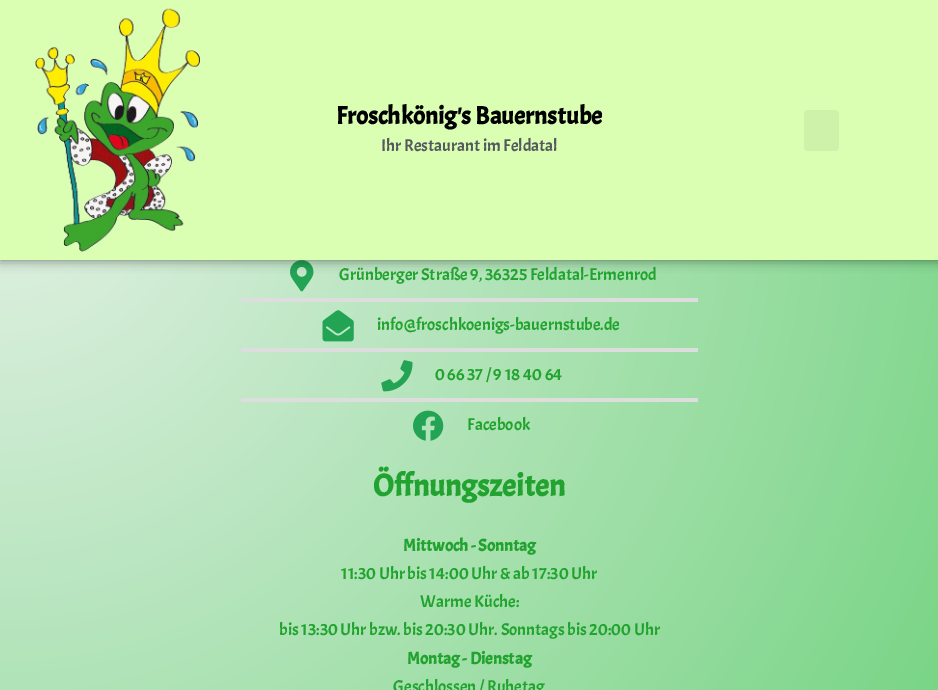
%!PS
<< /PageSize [938 690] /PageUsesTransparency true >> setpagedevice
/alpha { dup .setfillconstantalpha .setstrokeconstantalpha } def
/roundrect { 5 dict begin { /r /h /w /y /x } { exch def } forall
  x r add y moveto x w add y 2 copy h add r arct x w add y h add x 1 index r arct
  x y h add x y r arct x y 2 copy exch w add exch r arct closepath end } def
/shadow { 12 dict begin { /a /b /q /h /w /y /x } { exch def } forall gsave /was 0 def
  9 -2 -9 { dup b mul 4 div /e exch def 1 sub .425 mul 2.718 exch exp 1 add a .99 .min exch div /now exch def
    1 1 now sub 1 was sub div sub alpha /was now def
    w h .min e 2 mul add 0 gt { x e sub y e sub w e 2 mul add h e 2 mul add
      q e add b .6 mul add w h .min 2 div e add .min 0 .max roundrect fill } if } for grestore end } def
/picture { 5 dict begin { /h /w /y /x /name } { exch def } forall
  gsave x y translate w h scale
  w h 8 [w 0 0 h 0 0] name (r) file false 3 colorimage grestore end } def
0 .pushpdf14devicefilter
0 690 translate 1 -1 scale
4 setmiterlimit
1 setgray
0 0 938 690 rectfill
gsave newpath 0 260 moveto 938 260 lineto 938 690 lineto 0 690 lineto closepath clip newpath 0 163 translate 1328 1359 scale
<< /ShadingType 3 /ColorSpace /DeviceRGB /Coords [0 0 0 0 0 1] /Extend [true true] /Function << /FunctionType 2 /Domain [0 1] /C0 [0.89 0.945 0.898] /C1 [0.38 0.808 0.439] /N 1 >> >> shfill grestore
(img2.rgb) 290 260 24 32 picture
0 setgray
0 0 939 260 0 6 0.5 shadow
0.855 1 0.702 setrgbcolor
0 0 938 260 rectfill
(img1.rgb) 35 8 165 244 picture
/Acme-Bold [25 0 0 -25 0 0] selectfont
0 setgray
336 124 moveto (Froschkönig's Bauernstube) show
/Acme-Regular [17.1 0 0 -17.1 0 0] selectfont
0.329 0.349 0.373 setrgbcolor
381 151 moveto (Ihr Restaurant im Feldatal) show
0.812 0.949 0.667 setrgbcolor
804 110 35 41 4 roundrect fill
0.133 0.639 0.184 setrgbcolor
339 280 moveto (Grünberger Straße 9, 36325 Feldatal-Ermenrod) show
0.867 setgray
241 298 457 4 rectfill
(img3.rgb) 322 310 32 32 picture
0.133 0.639 0.184 setrgbcolor
377 330 moveto (info@froschkoenigs-bauernstube.de) show
0.867 setgray
241 348 457 4 rectfill
(img4.rgb) 381 360 32 32 picture
0.133 0.639 0.184 setrgbcolor
435 380 moveto (0 66 37 / 9 18 40 64) show
0.867 setgray
241 398 457 4 rectfill
(img5.rgb) 413 410 31 31 picture
0.133 0.639 0.184 setrgbcolor
467 430 moveto (Facebook) show
/Acme-Bold [31.25 0 0 -31.25 0 0] selectfont
373 496 moveto (Öffnungszeiten) show
/Acme-Bold [17.1 0 0 -17.1 0 0] selectfont
403 551 moveto (Mittwoch - Sonntag) show
/Acme-Regular [17.1 0 0 -17.1 0 0] selectfont
341 579 moveto (11:30 Uhr bis 14:00 Uhr & ab 17:30 Uhr) show
420 607 moveto (Warme Küche:) show
279 635 moveto (bis 13:30 Uhr bzw. bis 20:30 Uhr. Sonntags bis 20:00 Uhr) show
/Acme-Bold [17.1 0 0 -17.1 0 0] selectfont
407 664 moveto (Montag - Dienstag) show
/Acme-Regular [17.1 0 0 -17.1 0 0] selectfont
393 692 moveto (Geschlossen / Ruhetag) show
.poppdf14devicefilter showpage
